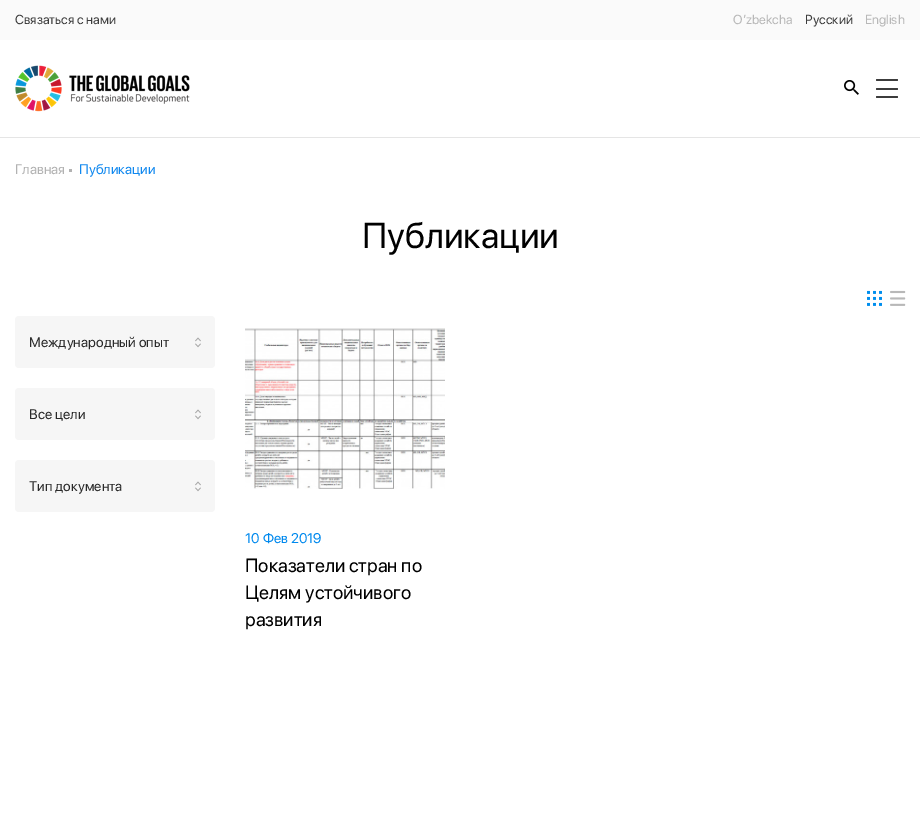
%!PS
<< /PageSize [920 815] >> setpagedevice
/roundrect { 5 dict begin { /r /h /w /y /x } { exch def } forall
  x r add y moveto x w add y 2 copy h add r arct x w add y h add x 1 index r arct
  x y h add x y r arct x y 2 copy exch w add exch r arct closepath end } def
/picture { 5 dict begin { /h /w /y /x /name } { exch def } forall
  gsave x y translate w h scale
  w h 8 [w 0 0 h 0 0] name (r) file false 3 colorimage grestore end } def
0 815 translate 1 -1 scale
4 setmiterlimit
1 setgray
0 0 920 815 rectfill
0.98 setgray
0 0 920 40 rectfill
/SFProDisplay-Regular [13 0 0 -13 0 0] selectfont
0.235 setgray
15 24 moveto (Связаться с нами) show
0.722 setgray
733 24 moveto (O’zbekcha) show
0.235 setgray
805 24 moveto (Русский) show
0.722 setgray
865 24 moveto (English) show
0.898 setgray
0 137 920 1 rectfill
(img1.rgb) 15 65 175 47 picture
(img2.rgb) 844 80 15 15 picture
0.235 setgray
876 79 22 2 1 roundrect fill
876 88 22 2 1 roundrect fill
876 96 22 2 1 roundrect fill
/SFProDisplay-Regular [14 0 0 -14 0 0] selectfont
0.698 setgray
15 174 moveto (Главная) show
69 169 3 3 rectfill
0.063 0.533 0.937 setrgbcolor
79 174 moveto (Публикации) show
/SFProDisplay-Regular [36 0 0 -36 0 0] selectfont
0 setgray
362 248 moveto (Публикации) show
0.965 setgray
15 316 200 52 4 roundrect fill
/SFProDisplay-Regular [14 0 0 -14 0 0] selectfont
0.165 setgray
29 347 moveto (Международный опыт) show
(img3.rgb) 195 337 6 5 picture
(img4.rgb) 195 343 6 5 picture
0.965 setgray
15 388 200 52 4 roundrect fill
0.165 setgray
29 419 moveto (Все цели) show
(img3.rgb) 195 409 6 5 picture
(img4.rgb) 195 415 6 5 picture
0.965 setgray
15 460 200 52 4 roundrect fill
0.165 setgray
29 491 moveto (Тип документа) show
(img3.rgb) 195 481 6 5 picture
(img4.rgb) 195 487 6 5 picture
(img5.rgb) 867 290 15 16 picture
(img6.rgb) 890 290 16 16 picture
(img7.rgb) 245 328 200 161 picture
0 0.537 0.933 setrgbcolor
245 543 moveto (10 Фев 2019) show
/SFProDisplay-Regular [19 0 0 -19 0 0] selectfont
0 setgray
245 572 moveto (Показатели стран по) show
245 599 moveto (Целям устойчивого) show
245 626 moveto (развития) show
showpage
